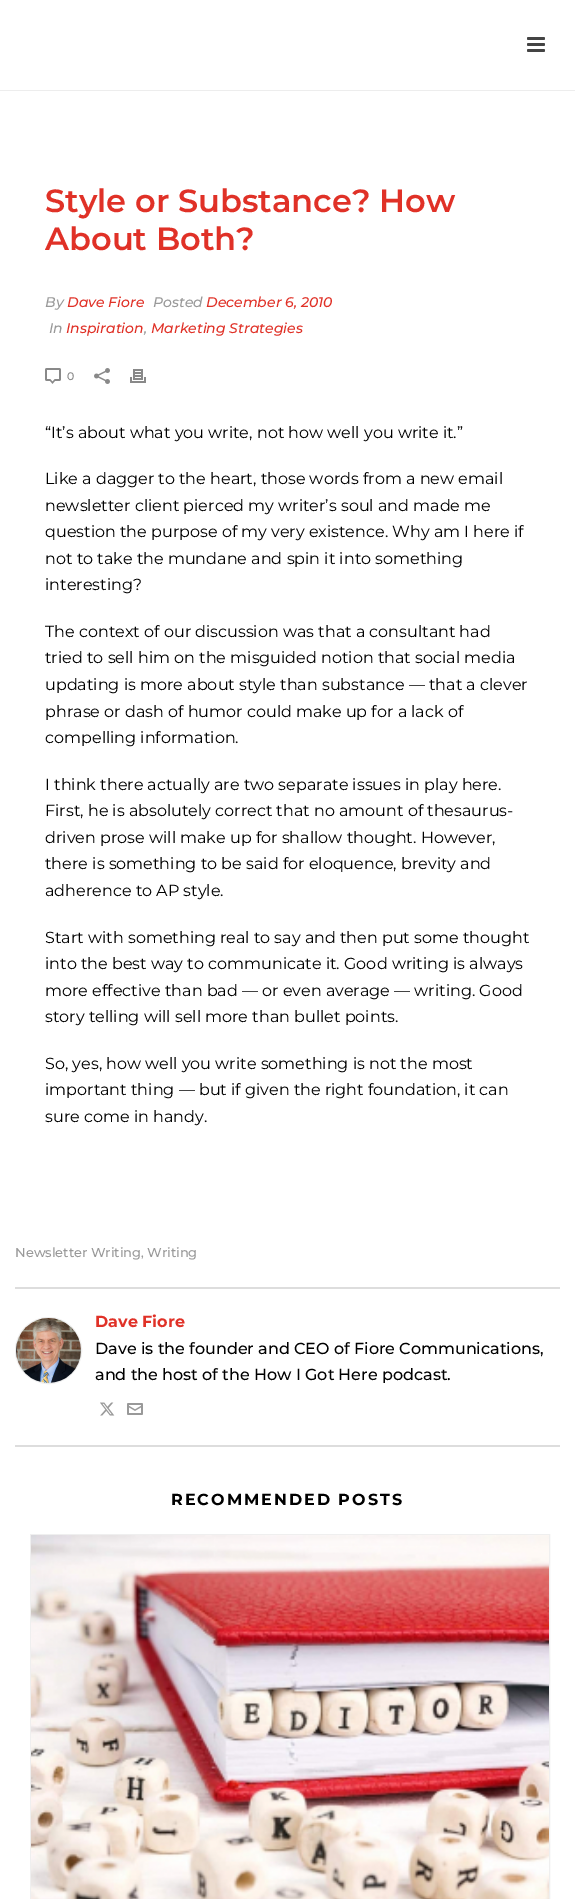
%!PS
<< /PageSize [575 1899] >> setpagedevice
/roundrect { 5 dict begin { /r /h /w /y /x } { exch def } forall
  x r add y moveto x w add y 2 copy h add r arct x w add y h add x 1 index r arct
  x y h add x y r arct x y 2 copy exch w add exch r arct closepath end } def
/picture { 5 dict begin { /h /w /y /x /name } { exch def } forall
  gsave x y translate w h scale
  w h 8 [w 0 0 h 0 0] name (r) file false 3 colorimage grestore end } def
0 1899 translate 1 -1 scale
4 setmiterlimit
1 setgray
0 0 575 1899 rectfill
0.929 setgray
0 90 575 1 rectfill
0.267 setgray
527 37 18 3 1.5 roundrect fill
527 43 18 3 1.5 roundrect fill
527 49 18 3 1.5 roundrect fill
/Montserrat-SemiBold [32 0 0 -32 0 0] selectfont
0.878 0.192 0.153 setrgbcolor
45 212 moveto (Style or Substance? How) show
45 250 moveto (About Both?) show
/Montserrat-MediumItalic [14 0 0 -14 0 0] selectfont
0.6 setgray
45 307 moveto (By) show
0.878 0.192 0.153 setrgbcolor
67 307 moveto (Dave Fiore) show
0.6 setgray
153 307 moveto (Posted) show
0.878 0.192 0.153 setrgbcolor
206 307 moveto (December 6, 2010) show
0.6 setgray
49 333 moveto (In) show
0.878 0.192 0.153 setrgbcolor
66 333 moveto (Inspiration) show
151 333 moveto (Marketing Strategies) show
0.6 setgray
144 333 moveto (,) show
(img1.rgb) 45 368 16 16 picture
/Montserrat-Medium [11 0 0 -11 0 0] selectfont
0.537 setgray
67 380 moveto (0) show
(img2.rgb) 94 368 16 16 picture
(img3.rgb) 130 369 16 14 picture
/Montserrat-Regular [16 0 0 -16 0 0] selectfont
0 setgray
45 438 moveto (“It’s about what you write, not how well you write it.”) show
45 484 moveto (Like a dagger to the heart, those words from a new email) show
45 511 moveto (newsletter client pierced my writer’s soul and made me) show
45 537 moveto (question the purpose of my very existence. Why am I here if) show
45 564 moveto (not to take the mundane and spin it into something) show
45 590 moveto (interesting?) show
45 637 moveto (The context of our discussion was that a consultant had) show
45 663 moveto (tried to sell him on the misguided notion that social media) show
45 690 moveto (updating is more about style than substance — that a clever) show
45 717 moveto (phrase or dash of humor could make up for a lack of) show
45 743 moveto (compelling information.) show
45 790 moveto (I think there actually are two separate issues in play here.) show
45 816 moveto (First, he is absolutely correct that no amount of thesaurus-) show
45 843 moveto (driven prose will make up for shallow thought. However,) show
45 869 moveto (there is something to be said for eloquence, brevity and) show
45 896 moveto (adherence to AP style.) show
45 943 moveto (Start with something real to say and then put some thought) show
45 969 moveto (into the best way to communicate it. Good writing is always) show
45 996 moveto (more effective than bad — or even average — writing. Good) show
45 1022 moveto (story telling will sell more than bullet points.) show
45 1069 moveto (So, yes, how well you write something is not the most) show
45 1095 moveto (important thing — but if given the right foundation, it can) show
45 1122 moveto (sure come in handy.) show
/Montserrat-Medium [13 0 0 -13 0 0] selectfont
0.6 setgray
15 1257 moveto (Newsletter Writing) show
/Montserrat-Medium [12 0 0 -12 0 0] selectfont
141 1257 moveto (,) show
/Montserrat-Medium [13 0 0 -13 0 0] selectfont
147 1257 moveto (Writing) show
0.867 setgray
15 1287 545 2 rectfill
15 1445 545 2 rectfill
0.933 setgray
newpath 48.5 1350.5 33 0 360 arc closepath stroke
(img4.rgb) 16 1318 65 65 picture
/Montserrat-Bold [16 0 0 -16 0 0] selectfont
0.878 0.192 0.153 setrgbcolor
95 1327 moveto (Dave Fiore) show
/Montserrat-Medium [16 0 0 -16 0 0] selectfont
0 setgray
95 1354 moveto (Dave is the founder and CEO of Fiore Communications,) show
95 1380 moveto (and the host of the How I Got Here podcast.) show
(img5.rgb) 100 1402 15 14 picture
(img6.rgb) 127 1403 16 12 picture
/Montserrat-Bold [16 0 0 -16 0 0] selectfont
171 1505 moveto 2 0 (RECOMMENDED POSTS) ashow
0.937 setgray
30.5 1534.5 519 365 rectstroke
(img7.rgb) 31 1535 518 364 picture
showpage
